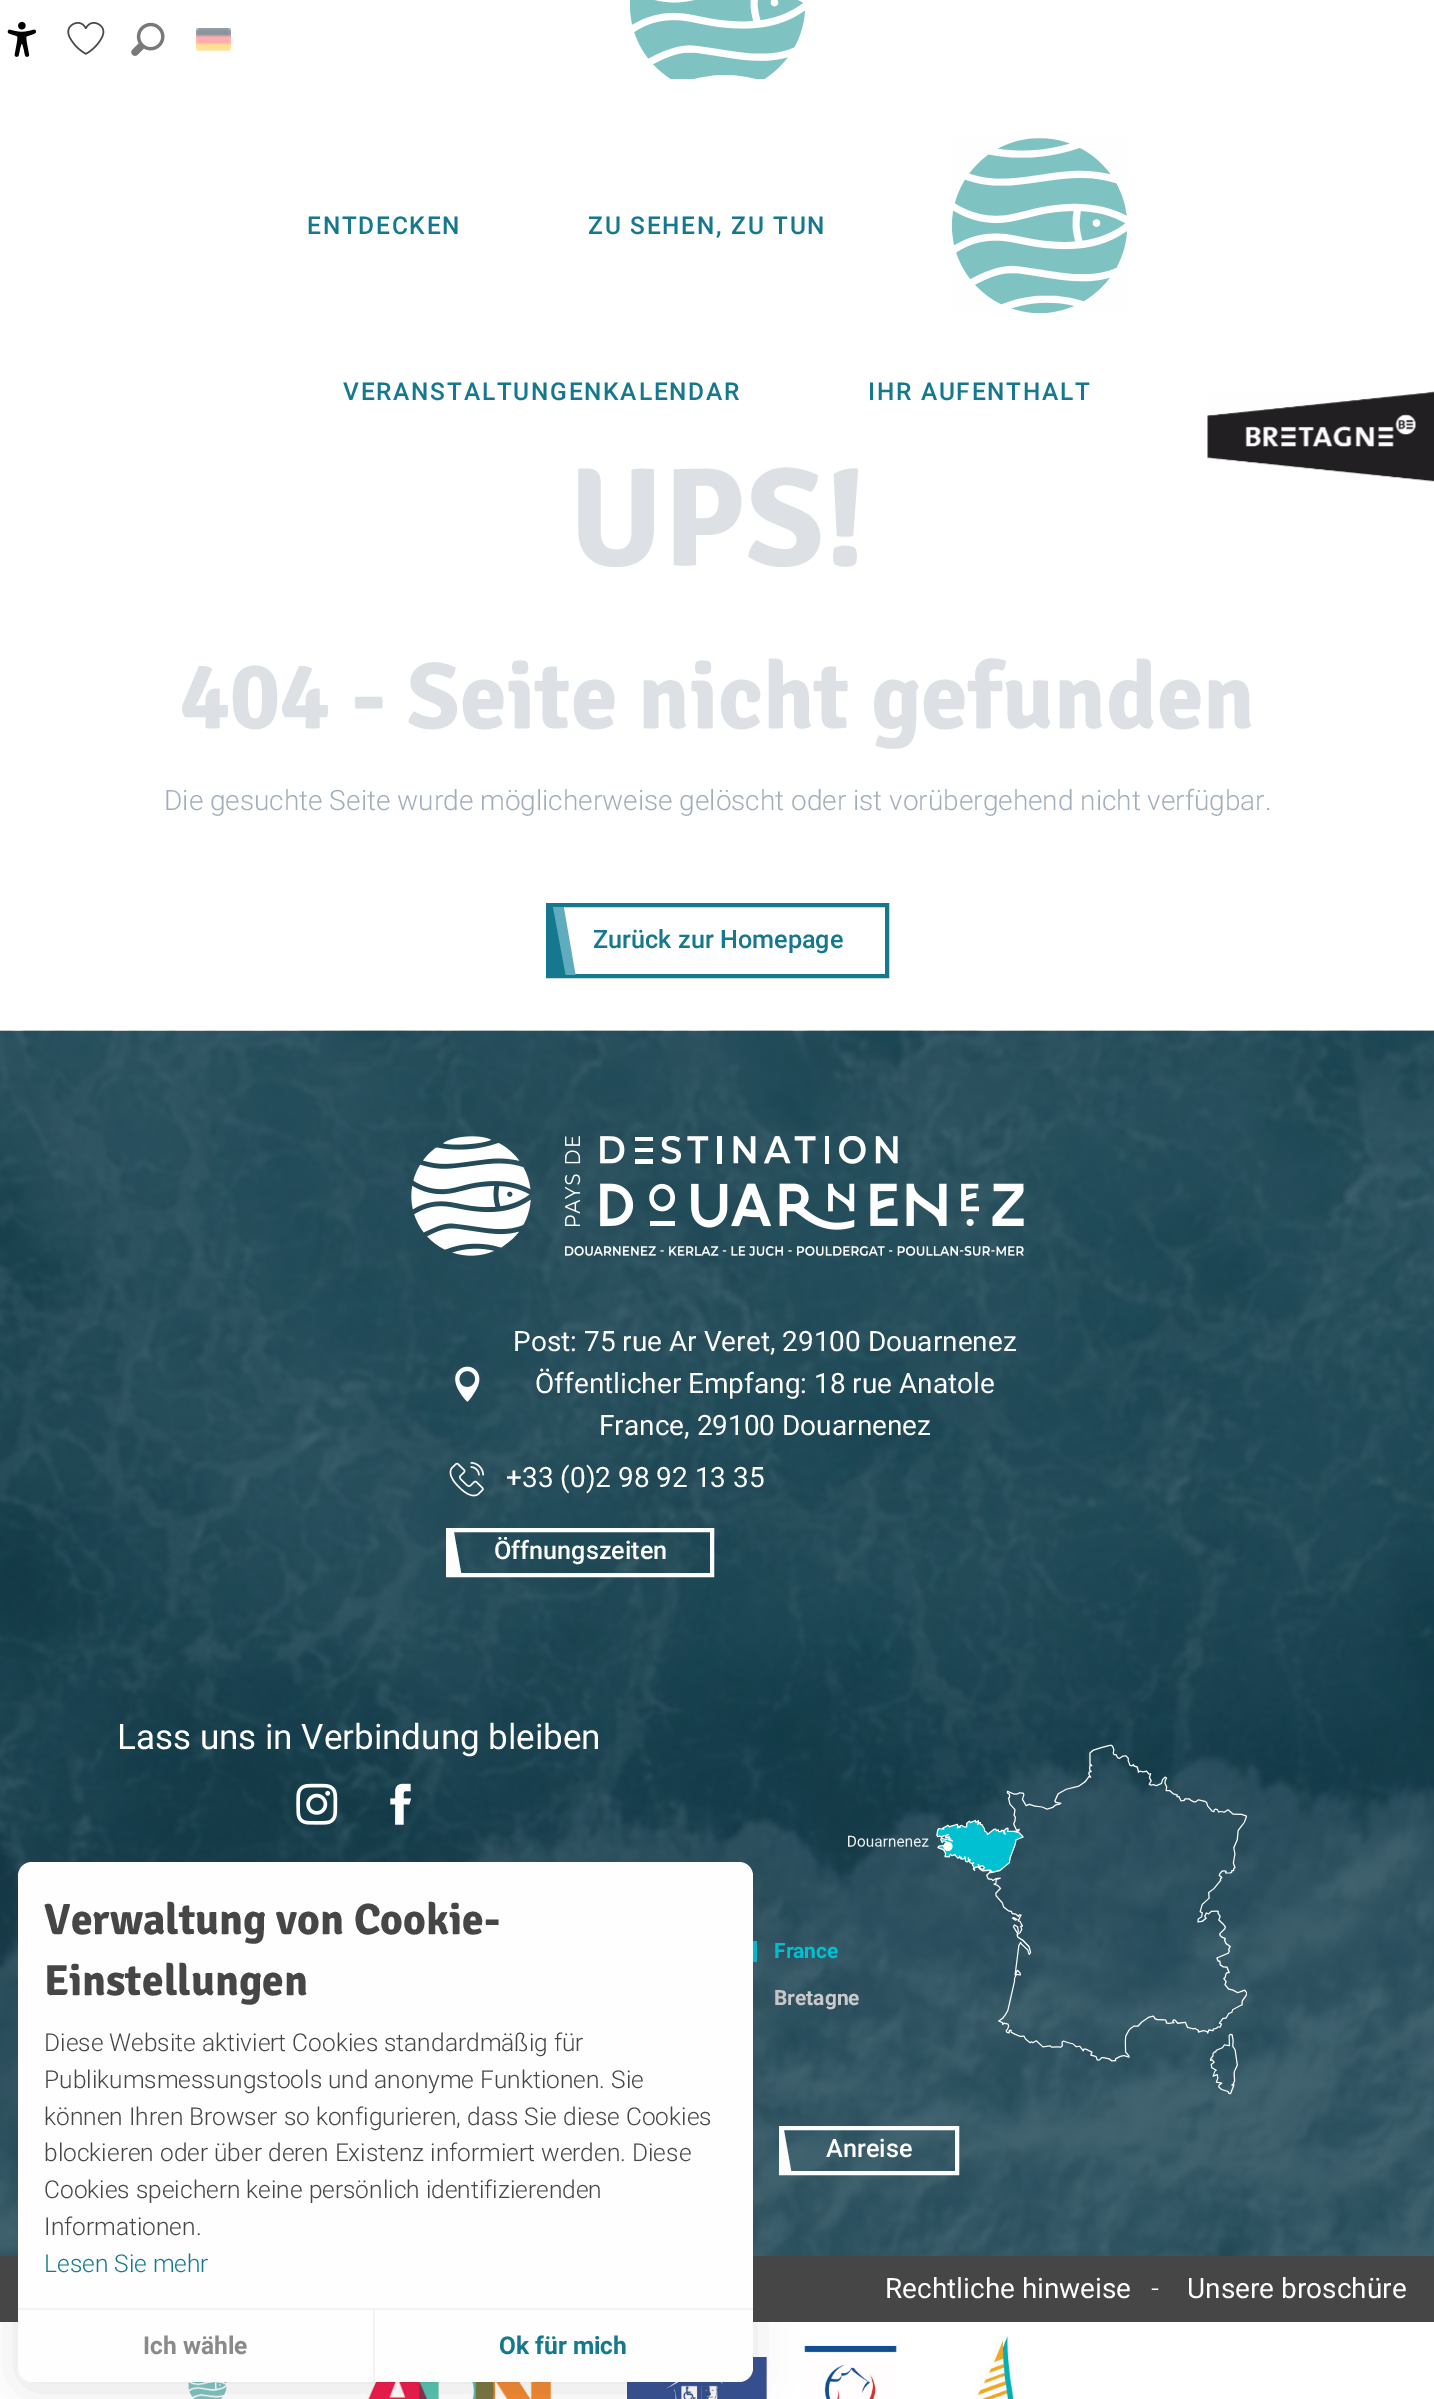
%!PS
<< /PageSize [1434 2399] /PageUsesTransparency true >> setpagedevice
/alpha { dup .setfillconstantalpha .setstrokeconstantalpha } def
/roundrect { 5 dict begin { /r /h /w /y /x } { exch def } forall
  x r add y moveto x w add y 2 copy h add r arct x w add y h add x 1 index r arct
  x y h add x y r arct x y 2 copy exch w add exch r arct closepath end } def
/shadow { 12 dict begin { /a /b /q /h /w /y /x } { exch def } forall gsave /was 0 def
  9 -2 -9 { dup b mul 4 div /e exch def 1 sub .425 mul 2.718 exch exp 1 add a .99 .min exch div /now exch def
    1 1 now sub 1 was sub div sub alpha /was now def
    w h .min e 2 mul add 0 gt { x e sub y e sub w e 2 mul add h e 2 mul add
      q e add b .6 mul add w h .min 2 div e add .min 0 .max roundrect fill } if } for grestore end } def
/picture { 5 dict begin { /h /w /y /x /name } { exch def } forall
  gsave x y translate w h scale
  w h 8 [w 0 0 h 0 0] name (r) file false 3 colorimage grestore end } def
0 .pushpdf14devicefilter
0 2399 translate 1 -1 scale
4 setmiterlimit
1 setgray
0 0 1434 2399 rectfill
(img1.rgb) 7 21 30 36 picture
(img2.rgb) 67 22 38 33 picture
(img3.rgb) 131 22 34 34 picture
(img4.rgb) 196 28 35 23 picture
/Roboto-Medium [24.5 0 0 -24.5 0 0] selectfont
0.082 0.471 0.557 setrgbcolor
307 234 moveto 1.75 0 (ENTDECKEN) ashow
588 234 moveto 1.75 0 (ZU SEHEN, ZU TUN) ashow
(img5.rgb) 952 138 175 175 picture
343 400 moveto 1.75 0 (VERANSTALTUNGENKALENDAR) ashow
868 400 moveto 1.75 0 (IHR AUFENTHALT) ashow
(img6.rgb) 1207 391 227 91 picture
(img7.rgb) 630 0 175 79 picture
/Signika-Bold [140 0 0 -140 0 0] selectfont
0.867 0.882 0.902 setrgbcolor
569 565 moveto (UPS!) show
/Signika-Bold [94.5 0 0 -94.5 0 0] selectfont
180 728 moveto (404 - Seite nicht gefunden) show
/Roboto-Light [28 0 0 -28 0 0] selectfont
0.635 0.678 0.733 setrgbcolor
164 810 moveto (Die gesuchte Seite wurde möglicherweise gelöscht oder ist vorübergehend nicht verfügbar.) show
0.082 0.471 0.557 setrgbcolor
4 setlinewidth
548 905 339 71 rectstroke
gsave
550 907 336 68 rectclip
0.369 0.675 0.745 setrgbcolor
newpath 192 903 moveto 563 903 lineto 576 978 lineto 205 978 lineto closepath fill
0.082 0.471 0.557 setrgbcolor
newpath 182 903 moveto 552 903 lineto 566 978 lineto 195 978 lineto closepath fill
grestore
/Roboto-Medium [25.25 0 0 -25.25 0 0] selectfont
593 948 moveto (Zurück zur Homepage) show
(img8.rgb) 0 1030 1434 1226 picture
(img9.rgb) 411 1136 613 120 picture
(img10.rgb) 455 1366 25 36 picture
/Roboto-Regular [28 0 0 -28 0 0] selectfont
0.996 setgray
513 1351 moveto (Post: 75 rue Ar Veret, 29100 Douarnenez) show
535 1393 moveto (Öffentlicher Empfang: 18 rue Anatole) show
599 1435 moveto (France, 29100 Douarnenez) show
(img11.rgb) 449 1462 35 35 picture
506 1487 moveto (+33 \(0\)2 98 92 13 35) show
448 1530 264 45 rectstroke
gsave
450 1531 261 42 rectclip
newpath 166 1527 moveto 453 1527 lineto 462 1578 lineto 176 1578 lineto closepath fill
grestore
/Roboto-Medium [25.25 0 0 -25.25 0 0] selectfont
494 1559 moveto (Öffnungszeiten) show
/Roboto-Regular [35 0 0 -35 0 0] selectfont
117 1749 moveto (Lass uns in Verbindung bleiben) show
(img12.rgb) 296 1783 42 42 picture
(img13.rgb) 390 1783 22 42 picture
0 0.753 0.82 setrgbcolor
753 1941 4 21 rectfill
/Roboto-Bold [21 0 0 -21 0 0] selectfont
774 1958 moveto (France) show
(img14.rgb) 848 1744 399 351 picture
0.792 setgray
774 2005 moveto (Bretagne) show
0.996 setgray
781 2128 176 45 rectstroke
gsave
782 2130 174 42 rectclip
newpath 592 2125 moveto 783 2125 lineto 792 2176 lineto 601 2176 lineto closepath fill
grestore
/Roboto-Medium [25.25 0 0 -25.25 0 0] selectfont
826 2157 moveto (Anreise) show
0.275 setgray
0 2256 1434 66 rectfill
/Roboto-Regular [28 0 0 -28 0 0] selectfont
0.996 setgray
885 2298 moveto (Rechtliche hinweise) show
/Roboto-Light [28 0 0 -28 0 0] selectfont
1151 2298 moveto (-) show
/Roboto-Regular [28 0 0 -28 0 0] selectfont
1187 2298 moveto (Unsere broschüre) show
(img15.rgb) 188 2382 39 17 picture
(img16.rgb) 367 2382 185 17 picture
(img17.rgb) 627 2357 140 42 picture
(img18.rgb) 804 2345 93 54 picture
(img19.rgb) 974 2336 42 63 picture
0.275 setgray
18 1869 735 520 14 21 0.15 shadow
0.996 setgray
18 1862 735 520 14 roundrect fill
/Signika-Bold [43.75 0 0 -43.75 0 0] selectfont
0.275 setgray
44 1934 moveto (Verwaltung von Cookie-) show
44 1995 moveto (Einstellungen) show
/Roboto-Light [24.5 0 0 -24.5 0 0] selectfont
44 2051 moveto (Diese Website aktiviert Cookies standardmäßig für) show
44 2088 moveto (Publikumsmessungstools und anonyme Funktionen. Sie) show
44 2125 moveto (können Ihren Browser so konfigurieren, dass Sie diese Cookies) show
44 2161 moveto (blockieren oder über deren Existenz informiert werden. Diese) show
44 2198 moveto (Cookies speichern keine persönlich identifizierenden) show
44 2235 moveto (Informationen.) show
0.082 0.471 0.557 setrgbcolor
44 2272 moveto (Lesen Sie mehr) show
0.953 setgray
18 2308 735 2 rectfill
373 2310 2 72 rectfill
/Roboto-Bold [24.5 0 0 -24.5 0 0] selectfont
0.541 setgray
143 2354 moveto (Ich wähle) show
0.082 0.471 0.557 setrgbcolor
499 2354 moveto (Ok für mich) show
.poppdf14devicefilter showpage
